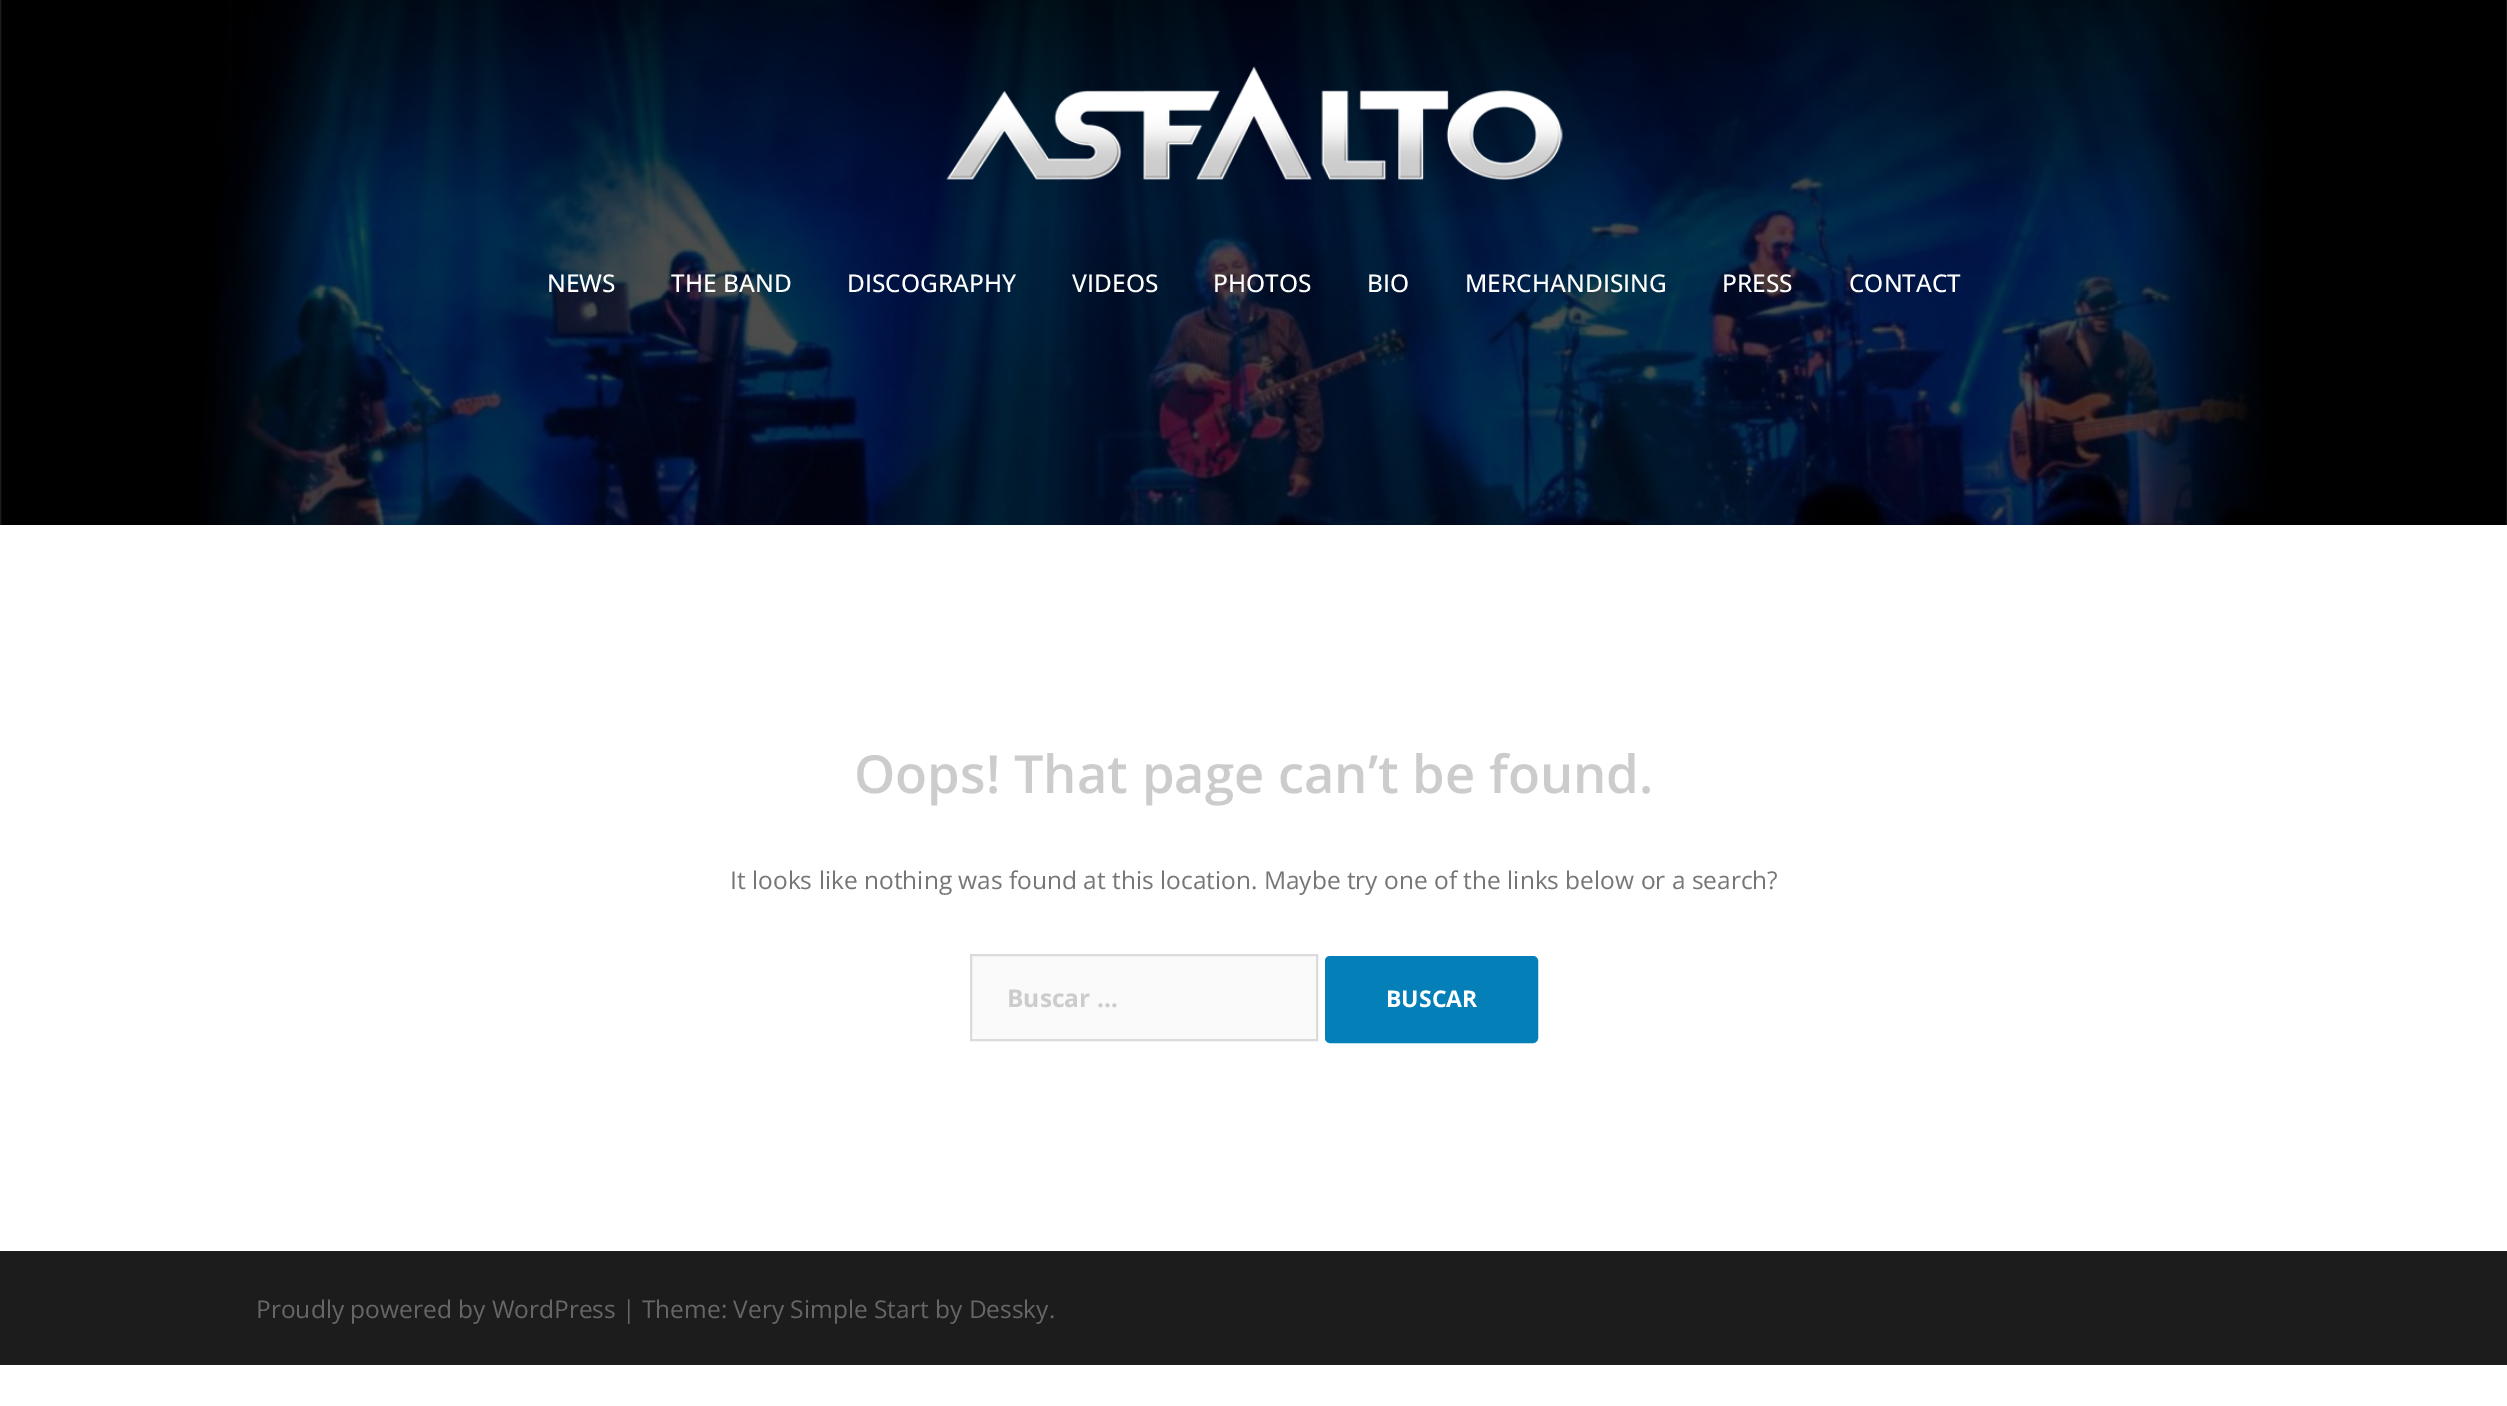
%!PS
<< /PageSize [2507 1406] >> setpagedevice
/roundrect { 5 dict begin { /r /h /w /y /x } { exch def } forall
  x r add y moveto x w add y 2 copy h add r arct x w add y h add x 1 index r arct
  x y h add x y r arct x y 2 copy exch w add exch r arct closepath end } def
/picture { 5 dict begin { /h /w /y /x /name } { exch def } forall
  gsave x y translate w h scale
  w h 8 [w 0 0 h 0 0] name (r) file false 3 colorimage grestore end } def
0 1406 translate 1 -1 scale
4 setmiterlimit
1 setgray
0 0 2507 1406 rectfill
(img1.rgb) 0 0 2507 525 picture
(img2.rgb) 946 66 617 114 picture
/OpenSans-Medium [24.5 0 0 -24.5 0 0] selectfont
547 292 moveto (NEWS) show
671 292 moveto (THE BAND) show
847 292 moveto (DISCOGRAPHY) show
1072 292 moveto (VIDEOS) show
1213 292 moveto (PHOTOS) show
1367 292 moveto (BIO) show
1465 292 moveto (MERCHANDISING) show
1722 292 moveto (PRESS) show
1849 292 moveto (CONTACT) show
/OpenSans-SemiBold [52.5 0 0 -52.5 0 0] selectfont
0.8 setgray
854 793 moveto (Oops! That page can’t be found.) show
/OpenSans-Regular [24.5 0 0 -24.5 0 0] selectfont
0.463 setgray
730 889 moveto (It looks like nothing was found at this location. Maybe try one of the links below or a search?) show
0.98 setgray
newpath 971 955 moveto 1317 955 lineto 1317 1040 lineto 971 1040 lineto closepath gsave fill grestore
0.859 setgray
2 setlinewidth
stroke
/OpenSans-Bold [24.5 0 0 -24.5 0 0] selectfont
0.8 setgray
1007 1007 moveto (Buscar …) show
0.02 0.498 0.722 setrgbcolor
1326 957 211 85 4 roundrect gsave fill grestore
stroke
/OpenSans-Bold [23 0 0 -23 0 0] selectfont
1 setgray
1386 1007 moveto (BUSCAR) show
0.11 setgray
0 1251 2507 114 rectfill
/OpenSans-Regular [24.5 0 0 -24.5 0 0] selectfont
0.4 setgray
256 1318 moveto (Proudly powered by WordPress | Theme: Very Simple Start by Dessky.) show
showpage
